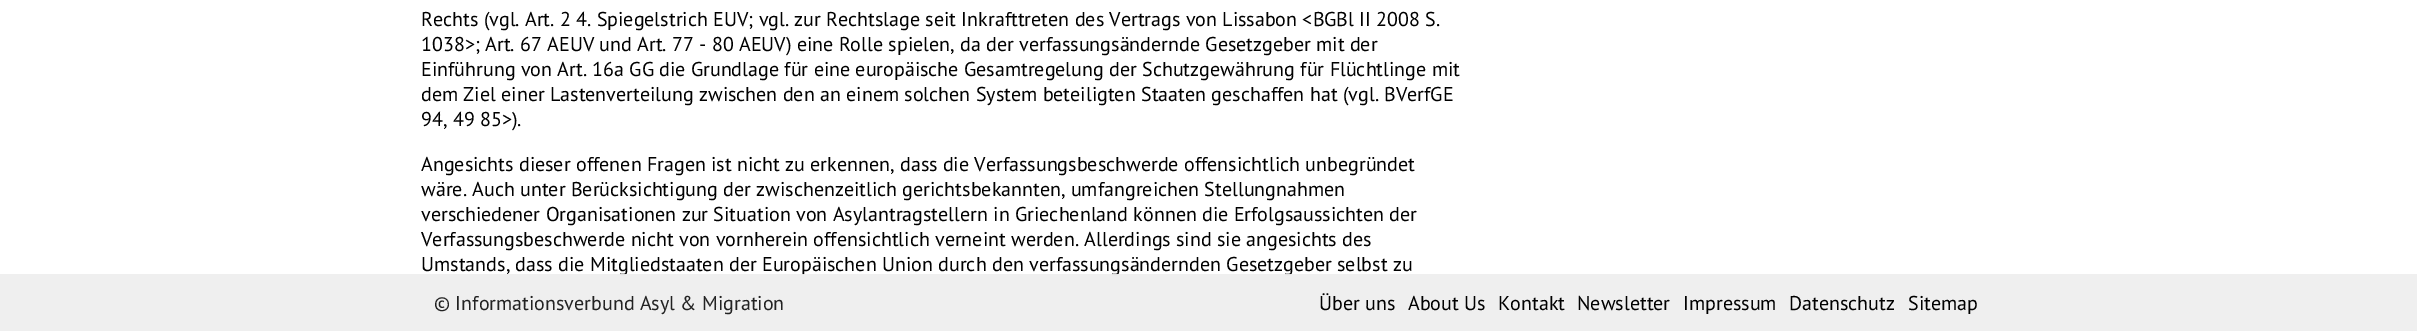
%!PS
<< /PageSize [2417 331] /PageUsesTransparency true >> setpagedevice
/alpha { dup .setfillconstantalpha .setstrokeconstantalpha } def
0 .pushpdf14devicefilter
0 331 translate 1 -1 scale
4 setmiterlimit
1 setgray
0 0 2417 331 rectfill
/PTSans-Regular [20 0 0 -20 0 0] selectfont
0 setgray
421 26 moveto (Rechts \(vgl. Art. 2 4. Spiegelstrich EUV; vgl. zur Rechtslage seit Inkrafttreten des Vertrags von Lissabon <BGBl II 2008 S.) show
421 51 moveto (1038>; Art. 67 AEUV und Art. 77 - 80 AEUV\) eine Rolle spielen, da der verfassungsändernde Gesetzgeber mit der) show
421 76 moveto (Einführung von Art. 16a GG die Grundlage für eine europäische Gesamtregelung der Schutzgewährung für Flüchtlinge mit) show
421 101 moveto (dem Ziel einer Lastenverteilung zwischen den an einem solchen System beteiligten Staaten geschaffen hat \(vgl. BVerfGE) show
421 126 moveto (94, 49 85>\).) show
421 171 moveto (Angesichts dieser offenen Fragen ist nicht zu erkennen, dass die Verfassungsbeschwerde offensichtlich unbegründet) show
421 196 moveto (wäre. Auch unter Berücksichtigung der zwischenzeitlich gerichtsbekannten, umfangreichen Stellungnahmen) show
421 221 moveto (verschiedener Organisationen zur Situation von Asylantragstellern in Griechenland können die Erfolgsaussichten der) show
421 246 moveto (Verfassungsbeschwerde nicht von vornherein offensichtlich verneint werden. Allerdings sind sie angesichts des) show
421 271 moveto (Umstands, dass die Mitgliedstaaten der Europäischen Union durch den verfassungsändernden Gesetzgeber selbst zu) show
0.95 alpha
0.933 setgray
0 274 2417 57 rectfill
1 alpha
0.133 setgray
434 310 moveto (© Informationsverbund Asyl & Migration) show
0 setgray
1319 310 moveto (Über uns) show
1408 310 moveto (About Us) show
1498 310 moveto (Kontakt) show
1577 310 moveto (Newsletter) show
1683 310 moveto (Impressum) show
1789 310 moveto (Datenschutz) show
1908 310 moveto (Sitemap) show
.poppdf14devicefilter showpage
